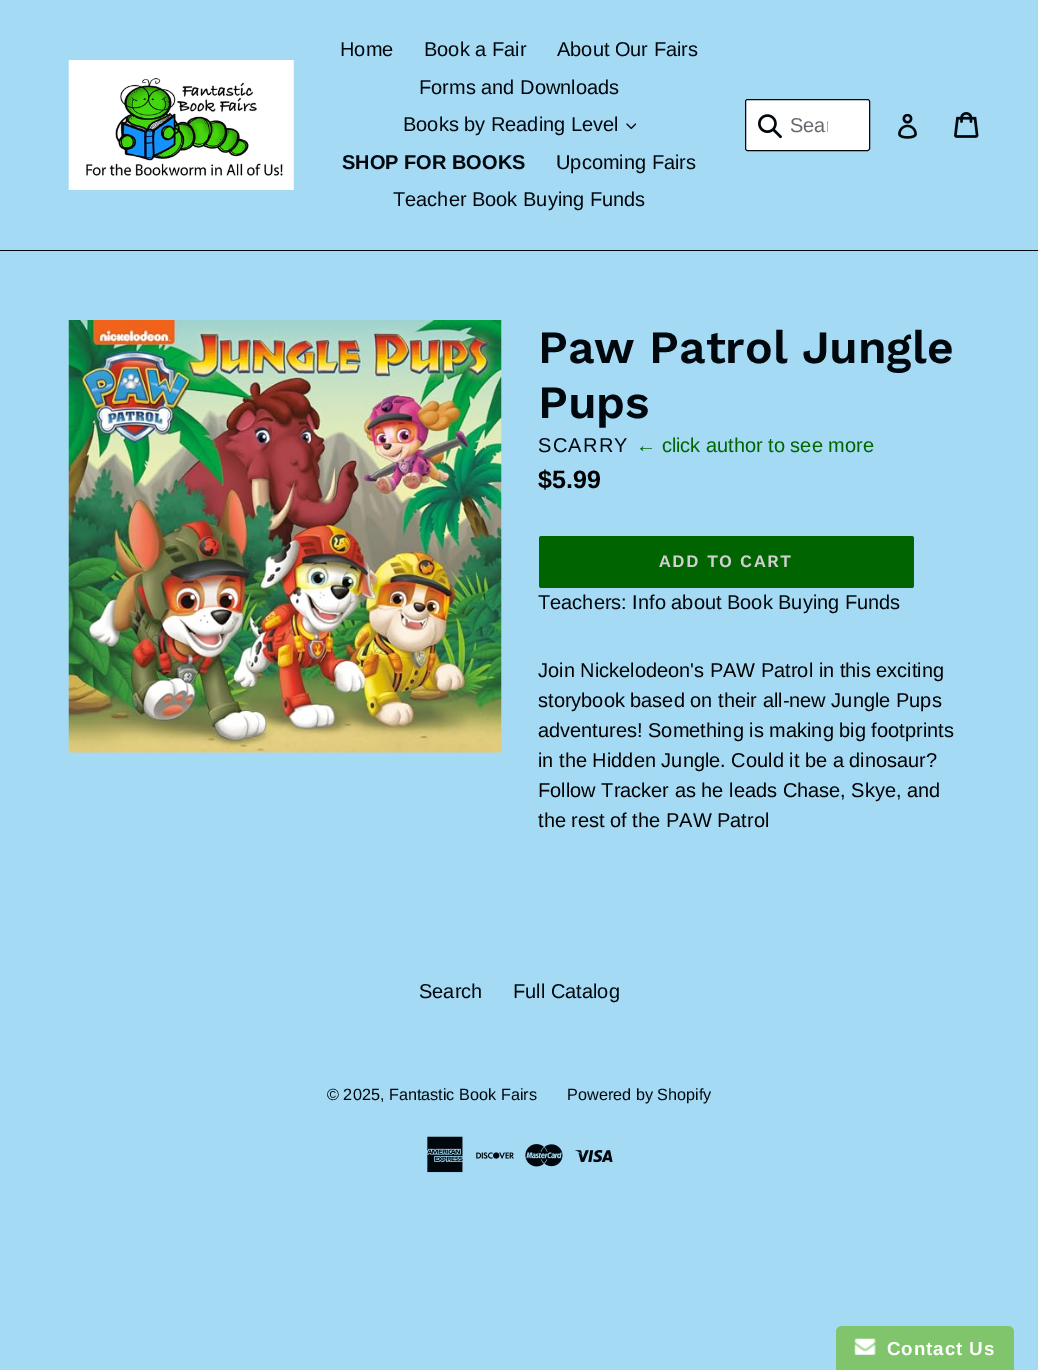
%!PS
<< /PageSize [1038 1370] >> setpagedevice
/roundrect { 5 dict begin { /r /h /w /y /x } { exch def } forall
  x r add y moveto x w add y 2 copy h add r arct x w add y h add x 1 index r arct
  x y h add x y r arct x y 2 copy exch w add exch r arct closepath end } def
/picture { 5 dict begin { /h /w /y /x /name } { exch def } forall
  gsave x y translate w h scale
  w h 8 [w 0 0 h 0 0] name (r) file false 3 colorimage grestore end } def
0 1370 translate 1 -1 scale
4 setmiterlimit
0.647 0.855 0.957 setrgbcolor
0 0 1038 1370 rectfill
0 0.027 0.051 setrgbcolor
0 250 1038 1 rectfill
(img1.rgb) 68 60 226 130 picture
/LiberationSans-Regular [20 0 0 -20 0 0] selectfont
340 56 moveto (Home) show
424 56 moveto (Book a Fair) show
557 56 moveto (About Our Fairs) show
419 94 moveto (Forms and Downloads) show
403 131 moveto (Books by Reading Level) show
(img2.rgb) 626 123 10 7 picture
/LiberationSans-Bold [20 0 0 -20 0 0] selectfont
342 169 moveto (SHOP FOR BOOKS) show
/LiberationSans-Regular [20 0 0 -20 0 0] selectfont
556 169 moveto (Upcoming Fairs) show
393 206 moveto (Teacher Book Buying Funds) show
1 setgray
745 99 125 52 rectfill
0 0.027 0.051 setrgbcolor
745.5 99.5 124 51 2 roundrect stroke
(img3.rgb) 758 114 24 25 picture
gsave
790 114 38 22 rectclip
0.4 0.416 0.431 setrgbcolor
790 132 moveto (Sear) show
grestore
(img4.rgb) 898 114 19 25 picture
(img5.rgb) 954 112 25 26 picture
(img6.rgb) 68 320 434 433 picture
/WorkSans-SemiBold [46.25 0 0 -46.25 0 0] selectfont
538 363 moveto (Paw Patrol Jungle) show
538 418 moveto (Pups) show
/LiberationSans-Regular [20 0 0 -20 0 0] selectfont
538 452 moveto 1.25 0 (SCARRY) ashow
0 0.392 0 setrgbcolor
636 452 moveto (← click author to see more) show
/LiberationSans-Bold [25 0 0 -25 0 0] selectfont
0 setgray
538 488 moveto ($5.99) show
0 0.392 0 setrgbcolor
539 536 375 52 2.5 roundrect fill
/WorkSans-SemiBold [17.5 0 0 -17.5 0 0] selectfont
0.82 0.812 0.812 setrgbcolor
659 567 moveto 1.4 0 (ADD TO CART) ashow
/LiberationSans-Regular [20 0 0 -20 0 0] selectfont
0 0.027 0.051 setrgbcolor
538 609 moveto (Teachers: Info about Book Buying Funds) show
0 setgray
538 677 moveto (Join Nickelodeon's PAW Patrol in this exciting) show
538 707 moveto (storybook based on their all-new Jungle Pups) show
538 737 moveto (adventures! Something is making big footprints) show
538 767 moveto (in the Hidden Jungle. Could it be a dinosaur?) show
538 797 moveto (Follow Tracker as he leads Chase, Skye, and) show
538 827 moveto (the rest of the PAW Patrol) show
0 0.027 0.051 setrgbcolor
419 998 moveto (Search) show
513 998 moveto (Full Catalog) show
/LiberationSans-Regular [16.25 0 0 -16.25 0 0] selectfont
327 1100 moveto (© 2025, Fantastic Book Fairs) show
567 1100 moveto (Powered by Shopify) show
(img7.rgb) 427 1136 36 37 picture
(img8.rgb) 476 1152 38 7 picture
(img9.rgb) 525 1144 38 23 picture
(img10.rgb) 575 1150 38 13 picture
0.502 0.773 0.42 setrgbcolor
newpath 842 1326 moveto 1008 1326 lineto 1011.5 1326 1014 1328.5 1014 1332 curveto 1014 1370 lineto 836 1370 lineto 836 1332 lineto 836 1328.5 838.5 1326 842 1326 curveto closepath fill
(img11.rgb) 854 1338 22 17 picture
/LiberationSans-Bold [18.75 0 0 -18.75 0 0] selectfont
1 setgray
887 1355 moveto 0.9 0 (Contact Us) ashow
showpage
